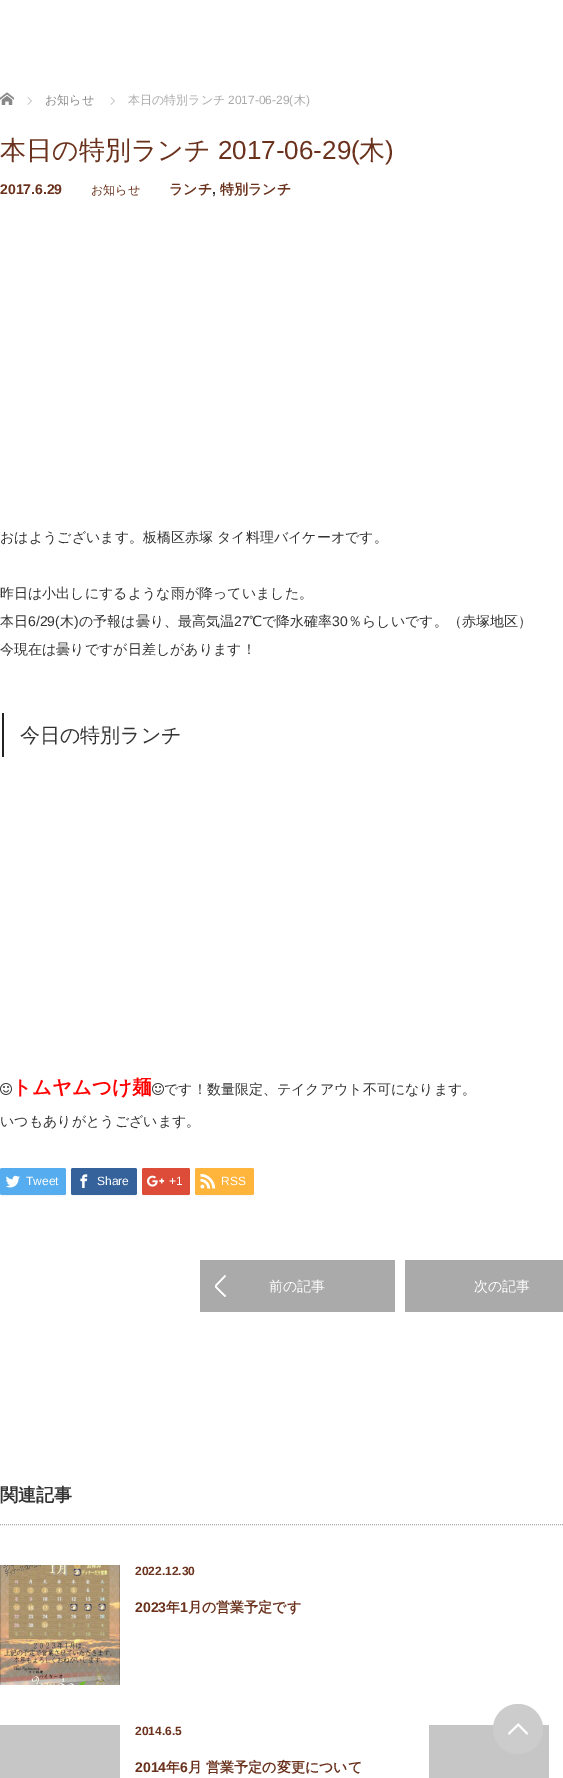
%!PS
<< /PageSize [563 1778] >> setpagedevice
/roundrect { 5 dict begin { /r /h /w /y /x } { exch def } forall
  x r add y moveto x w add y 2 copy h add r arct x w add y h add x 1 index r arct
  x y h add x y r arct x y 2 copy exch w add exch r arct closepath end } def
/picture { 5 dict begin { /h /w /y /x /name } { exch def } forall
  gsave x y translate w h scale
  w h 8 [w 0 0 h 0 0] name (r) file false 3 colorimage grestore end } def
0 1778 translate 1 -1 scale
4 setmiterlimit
1 setgray
0 0 563 1778 rectfill
(img1.rgb) 0 92 14 13 picture
(img2.rgb) 27 97 5 8 picture
/WenQuanYiZenHei-Medium [12 0 0 -12 0 0] selectfont
0.533 setgray
45 104 moveto (お知らせ) show
(img2.rgb) 110 97 5 8 picture
0.667 setgray
128 104 moveto (本日の特別ランチ) show
/LiberationSans-Regular [12 0 0 -12 0 0] selectfont
228 104 moveto (2017-06-29\() show
/WenQuanYiZenHei-Medium [12 0 0 -12 0 0] selectfont
294 104 moveto (木) show
/LiberationSans-Regular [12 0 0 -12 0 0] selectfont
306 104 moveto (\)) show
/WenQuanYiZenHei-Medium [26 0 0 -26 0 0] selectfont
0.416 0.196 0.114 setrgbcolor
0 159 moveto (本日の特別ランチ) show
/LiberationSans-Regular [26 0 0 -26 0 0] selectfont
218 159 moveto (2017-06-29\() show
/WenQuanYiZenHei-Medium [26 0 0 -26 0 0] selectfont
359 159 moveto (木) show
/LiberationSans-Regular [26 0 0 -26 0 0] selectfont
385 159 moveto (\)) show
/LiberationSans-Bold [14 0 0 -14 0 0] selectfont
0 194 moveto (2017.6.29) show
/WenQuanYiZenHei-Medium [12 0 0 -12 0 0] selectfont
91 194 moveto (お知らせ) show
/WenQuanYiZenHei-Bold [14 0 0 -14 0 0] selectfont
169 194 moveto (ランチ) show
/LiberationSans-Bold [14 0 0 -14 0 0] selectfont
0.2 setgray
212 194 moveto (,) show
/WenQuanYiZenHei-Bold [14 0 0 -14 0 0] selectfont
0.416 0.196 0.114 setrgbcolor
220 194 moveto (特別ランチ) show
/WenQuanYiZenHei-Medium [14 0 0 -14 0 0] selectfont
0.2 setgray
0 542 moveto (おはようございます。板橋区赤塚 タイ料理バイケーオです。) show
0 598 moveto (昨日は小出しにするような雨が降っていました。) show
0 626 moveto (本日) show
/LiberationSans-Regular [14 0 0 -14 0 0] selectfont
28 626 moveto (6/29\() show
/WenQuanYiZenHei-Medium [14 0 0 -14 0 0] selectfont
60 626 moveto (木) show
/LiberationSans-Regular [14 0 0 -14 0 0] selectfont
74 626 moveto (\)) show
/WenQuanYiZenHei-Medium [14 0 0 -14 0 0] selectfont
79 626 moveto (の予報は曇り、最高気温) show
/LiberationSans-Regular [14 0 0 -14 0 0] selectfont
234 626 moveto (27) show
/WenQuanYiZenHei-Medium [14 0 0 -14 0 0] selectfont
249 626 moveto (℃で降水確率) show
/LiberationSans-Regular [14 0 0 -14 0 0] selectfont
332 626 moveto (30) show
/WenQuanYiZenHei-Medium [14 0 0 -14 0 0] selectfont
348 626 moveto (％らしいです。（赤塚地区）) show
0 654 moveto (今現在は曇りですが日差しがあります！) show
0.133 setgray
2 713 2 44 rectfill
/WenQuanYiZenHei-Medium [20 0 0 -20 0 0] selectfont
0.2 setgray
20 742 moveto (今日の特別ランチ) show
(img3.rgb) 0 1083 12 12 picture
/WenQuanYiZenHei-Bold [19.5 0 0 -19.5 0 0] selectfont
1 0 0 setrgbcolor
12 1094 moveto (トムヤムつけ麺) show
(img3.rgb) 152 1083 12 12 picture
/WenQuanYiZenHei-Medium [14 0 0 -14 0 0] selectfont
0.2 setgray
164 1094 moveto (です！数量限定、テイクアウト不可になります。) show
0 1126 moveto (いつもありがとうございます。) show
0.969 setgray
newpath 0 1193 moveto 0 1199 9 1196 12 1196 curveto 54 1196 lineto 57 1196 66 1199 66 1193 curveto 66 1197 58 1195 54 1195 curveto 1 1195 lineto closepath fill
0.333 0.675 0.933 setrgbcolor
0 1168 66 27 2 roundrect fill
(img4.rgb) 5 1175 15 13 picture
/LiberationSans-Regular [12 0 0 -12 0 0] selectfont
1 setgray
26 1185 moveto (Tweet) show
0.969 setgray
newpath 71 1193 moveto 71 1199 80 1196 83 1196 curveto 125 1196 lineto 128 1196 137 1199 137 1193 curveto 136 1195 lineto 83 1195 lineto 79 1195 71 1197 71 1193 curveto closepath fill
0.208 0.384 0.604 setrgbcolor
71 1168 66 27 2 roundrect fill
(img5.rgb) 80 1174 8 14 picture
1 setgray
97 1185 moveto (Share) show
0.969 setgray
newpath 142 1193 moveto 142 1198 147 1196 151 1196 curveto 181 1196 lineto 185 1196 190 1198 190 1193 curveto 190 1194 189 1195 188 1195 curveto 144 1195 lineto 143 1195 142 1194 142 1193 curveto closepath fill
0.867 0.294 0.224 setrgbcolor
142 1168 48 27 2 roundrect fill
(img6.rgb) 147 1175 18 12 picture
1 setgray
169 1185 moveto (+1) show
0.969 setgray
newpath 195 1193 moveto 195 1198 202 1196 206 1196 curveto 243 1196 lineto 247 1196 254 1198 254 1193 curveto 253 1195 lineto 196 1195 lineto closepath fill
1 0.71 0.235 setrgbcolor
195 1168 59 27 2 roundrect fill
(img7.rgb) 200 1173 16 16 picture
1 setgray
221 1185 moveto (RSS) show
0.667 setgray
200 1260 195 52 rectfill
(img8.rgb) 215 1275 11 22 picture
/WenQuanYiZenHei-Medium [14 0 0 -14 0 0] selectfont
1 setgray
269 1291 moveto (前の記事) show
0.667 setgray
405 1260 158 52 rectfill
1 setgray
474 1291 moveto (次の記事) show
0.667 setgray
[1 1] 0 setdash
newpath 0 1524.5 moveto 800 1524.5 lineto stroke
/WenQuanYiZenHei-Bold [18 0 0 -18 0 0] selectfont
0.2 setgray
0 1501 moveto (関連記事) show
(img9.rgb) 0 1565 120 120 picture
/LiberationSans-Bold [12 0 0 -12 0 0] selectfont
0.416 0.196 0.114 setrgbcolor
135 1575 moveto (2022.12.30) show
/LiberationSans-Bold [14 0 0 -14 0 0] selectfont
135 1612 moveto (2023) show
/WenQuanYiZenHei-Bold [14 0 0 -14 0 0] selectfont
166 1612 moveto (年) show
/LiberationSans-Bold [14 0 0 -14 0 0] selectfont
180 1612 moveto (1) show
/WenQuanYiZenHei-Bold [14 0 0 -14 0 0] selectfont
188 1612 moveto (月の営業予定です) show
0.776 setgray
0 1725 120 53 rectfill
/LiberationSans-Bold [12 0 0 -12 0 0] selectfont
0.416 0.196 0.114 setrgbcolor
135 1735 moveto (2014.6.5) show
/LiberationSans-Bold [14 0 0 -14 0 0] selectfont
135 1772 moveto (2014) show
/WenQuanYiZenHei-Bold [14 0 0 -14 0 0] selectfont
166 1772 moveto (年) show
/LiberationSans-Bold [14 0 0 -14 0 0] selectfont
180 1772 moveto (6) show
/WenQuanYiZenHei-Bold [14 0 0 -14 0 0] selectfont
188 1772 moveto (月 営業予定の変更について) show
0.776 setgray
429 1725 120 53 rectfill
0.8 setgray
newpath 518 1729 25 0 360 arc closepath fill
(img10.rgb) 508 1723 20 12 picture
showpage
